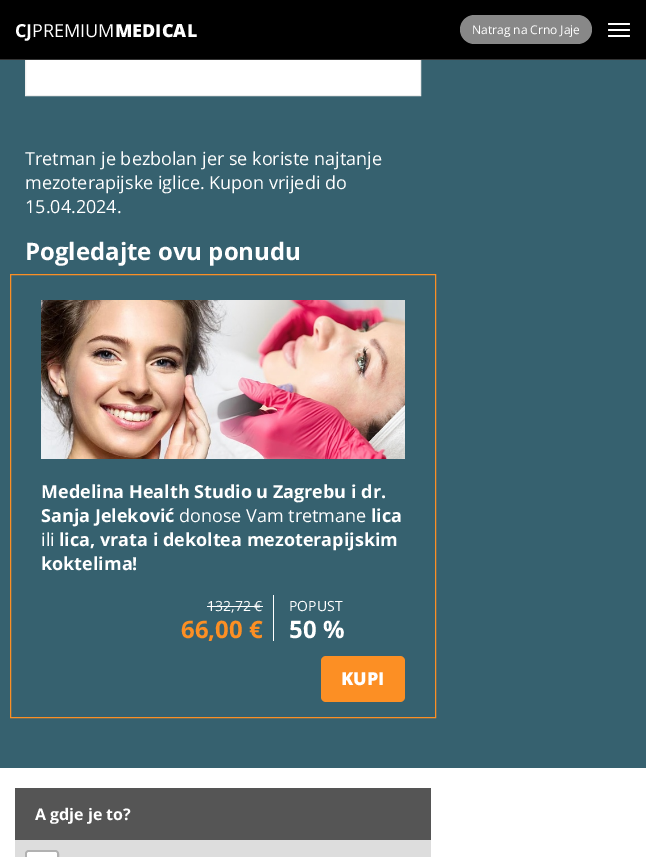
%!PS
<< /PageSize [646 857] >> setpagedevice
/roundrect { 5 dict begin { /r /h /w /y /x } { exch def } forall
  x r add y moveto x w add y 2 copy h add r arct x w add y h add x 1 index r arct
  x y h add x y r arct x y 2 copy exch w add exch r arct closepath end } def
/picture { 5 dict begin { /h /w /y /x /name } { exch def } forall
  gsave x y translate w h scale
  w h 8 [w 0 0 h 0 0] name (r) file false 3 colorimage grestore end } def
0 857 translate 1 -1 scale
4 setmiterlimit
0.212 0.38 0.435 setrgbcolor
0 0 646 857 rectfill
1 setgray
26 60 394 35 rectfill
0.933 setgray
25.5 -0.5 395 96 rectstroke
0 setgray
0 0 646 59 rectfill
0.2 setgray
0 59 646 1 rectfill
/OpenSans-Bold [18 0 0 -18 0 0] selectfont
1 setgray
15 37 moveto (CJ) show
/OpenSans-Regular [18 0 0 -18 0 0] selectfont
32 37 moveto (PREMIUM) show
/OpenSans-ExtraBold [18 0 0 -18 0 0] selectfont
115 37 moveto (MEDICAL) show
0.533 setgray
460 15 132 29 14.5 roundrect fill
/OpenSans-Regular [12 0 0 -12 0 0] selectfont
1 setgray
472 34 moveto (Natrag na Crno Jaje) show
608 23 22 2 1 roundrect fill
608 29 22 2 1 roundrect fill
608 35 22 2 1 roundrect fill
/OpenSans-Regular [18 0 0 -18 0 0] selectfont
25 165 moveto (Tretman je bezbolan jer se koriste najtanje) show
25 189 moveto (mezoterapijske iglice. Kupon vrijedi do) show
25 213 moveto (15.04.2024.) show
/OpenSans-Bold [24 0 0 -24 0 0] selectfont
25 260 moveto (Pogledajte ovu ponudu) show
0.988 0.561 0.141 setrgbcolor
10.5 274.5 425 443 rectstroke
(img1.rgb) 41 300 364 159 picture
/OpenSans-Bold [18 0 0 -18 0 0] selectfont
1 setgray
41 498 moveto (Medelina Health Studio u Zagrebu i dr.) show
41 522 moveto (Sanja Jeleković) show
/OpenSans-Regular [18 0 0 -18 0 0] selectfont
179 522 moveto (donose Vam tretmane) show
/OpenSans-Bold [18 0 0 -18 0 0] selectfont
371 522 moveto (lica) show
/OpenSans-Regular [18 0 0 -18 0 0] selectfont
41 546 moveto (ili) show
/OpenSans-Bold [18 0 0 -18 0 0] selectfont
59 546 moveto (lica, vrata i dekoltea mezoterapijskim) show
41 570 moveto (koktelima!) show
273 595 1 46 rectfill
/OpenSans-Regular [14 0 0 -14 0 0] selectfont
207 611 moveto (132,72 €) show
207 606 56 1 rectfill
/OpenSans-Bold [24 0 0 -24 0 0] selectfont
0.988 0.561 0.141 setrgbcolor
181 638 moveto (66,00 €) show
/OpenSans-Regular [14 0 0 -14 0 0] selectfont
1 setgray
289 611 moveto (POPUST) show
/OpenSans-Bold [24 0 0 -24 0 0] selectfont
289 638 moveto (50 %) show
0.988 0.561 0.141 setrgbcolor
321 656 84 46 5 roundrect fill
/OpenSans-ExtraBold [18 0 0 -18 0 0] selectfont
1 setgray
341 685 moveto (KUPI) show
0 768 646 89 rectfill
0.333 setgray
15 788 416 52 rectfill
/OpenSans-Bold [16 0 0 -16 0 0] selectfont
1 setgray
35 820 moveto (A gdje je to?) show
0.867 setgray
15 840 416 17 rectfill
0.694 setgray
2 setlinewidth
26 851 32 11 3 roundrect stroke
1 setgray
newpath 29 852 moveto 55 852 lineto 56 852 57 853 57 854 curveto 57 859 lineto 27 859 lineto 27 854 lineto 27 853 28 852 29 852 curveto closepath fill
showpage
